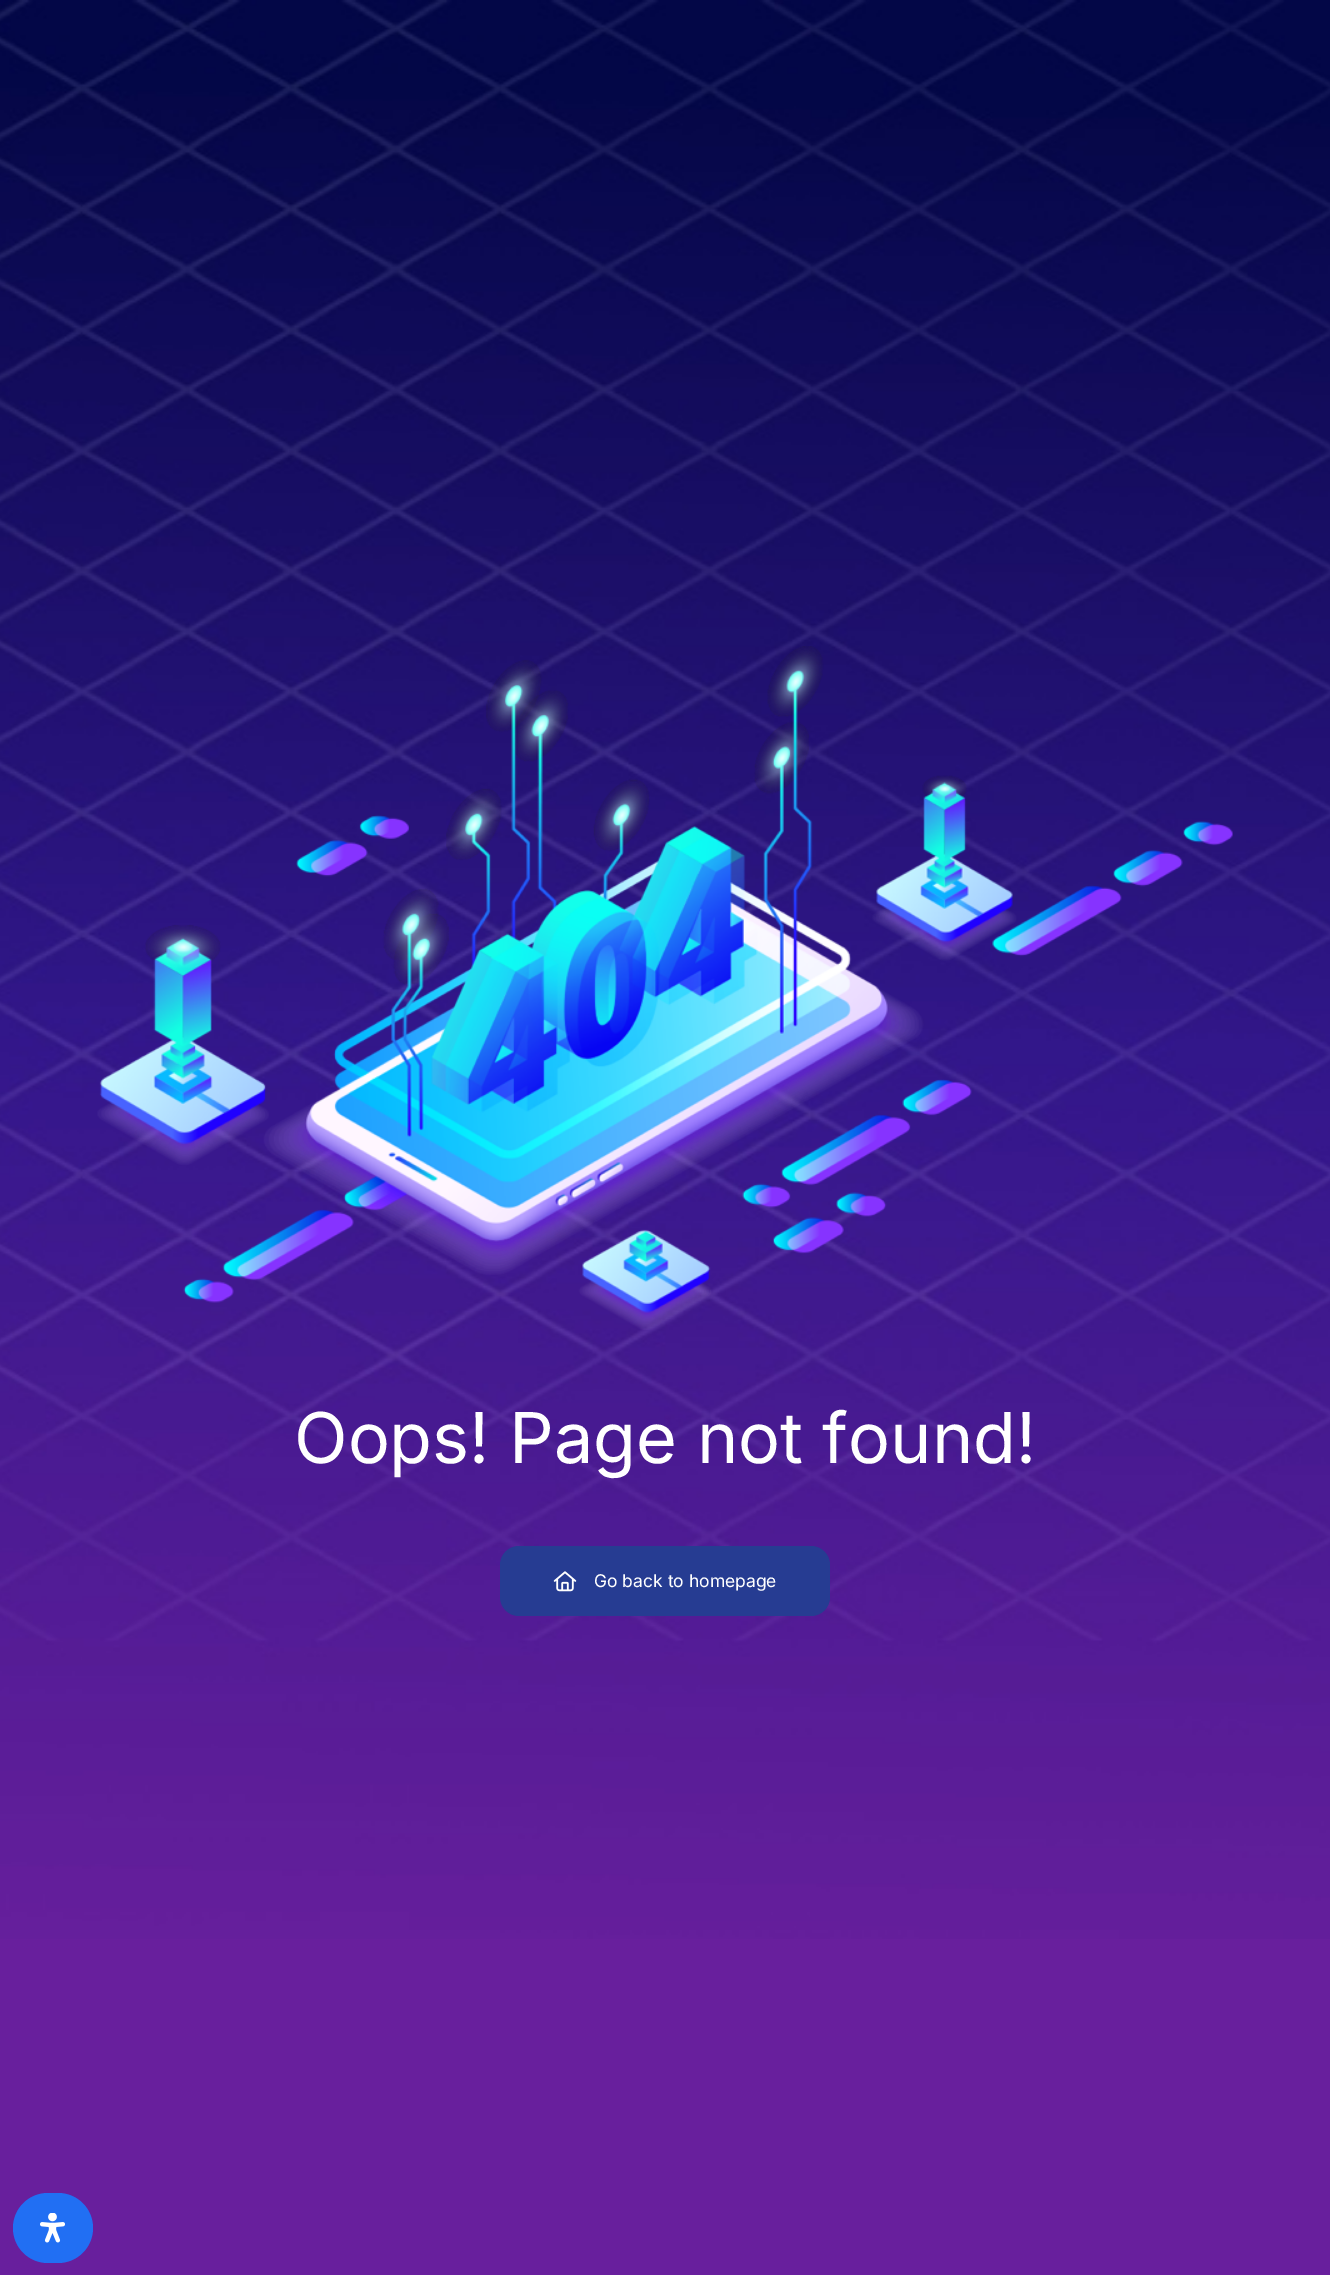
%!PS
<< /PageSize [1330 2275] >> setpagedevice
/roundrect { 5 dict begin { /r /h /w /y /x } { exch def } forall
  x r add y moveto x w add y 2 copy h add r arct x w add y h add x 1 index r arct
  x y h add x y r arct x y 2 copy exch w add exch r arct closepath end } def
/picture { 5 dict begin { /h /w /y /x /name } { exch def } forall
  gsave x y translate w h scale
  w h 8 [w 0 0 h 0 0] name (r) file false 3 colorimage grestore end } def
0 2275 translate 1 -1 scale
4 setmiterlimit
0.408 0.122 0.616 setrgbcolor
0 0 1330 2275 rectfill
(img1.rgb) 0 0 1330 1939 picture
(img2.rgb) 97 646 1136 684 picture
/Inter-Regular [70 0 0 -70 0 0] selectfont
1 setgray
294 1463 moveto (Oops! Page not found!) show
0.149 0.235 0.573 setrgbcolor
500 1546 330 70 19 roundrect fill
(img3.rgb) 553 1571 24 21 picture
/Inter-Regular [17.5 0 0 -17.5 0 0] selectfont
1 setgray
594 1587 moveto (Go back to homepage) show
0.129 0.435 0.953 setrgbcolor
13 2193 80 70 35 roundrect fill
(img4.rgb) 40 2213 25 30 picture
showpage
